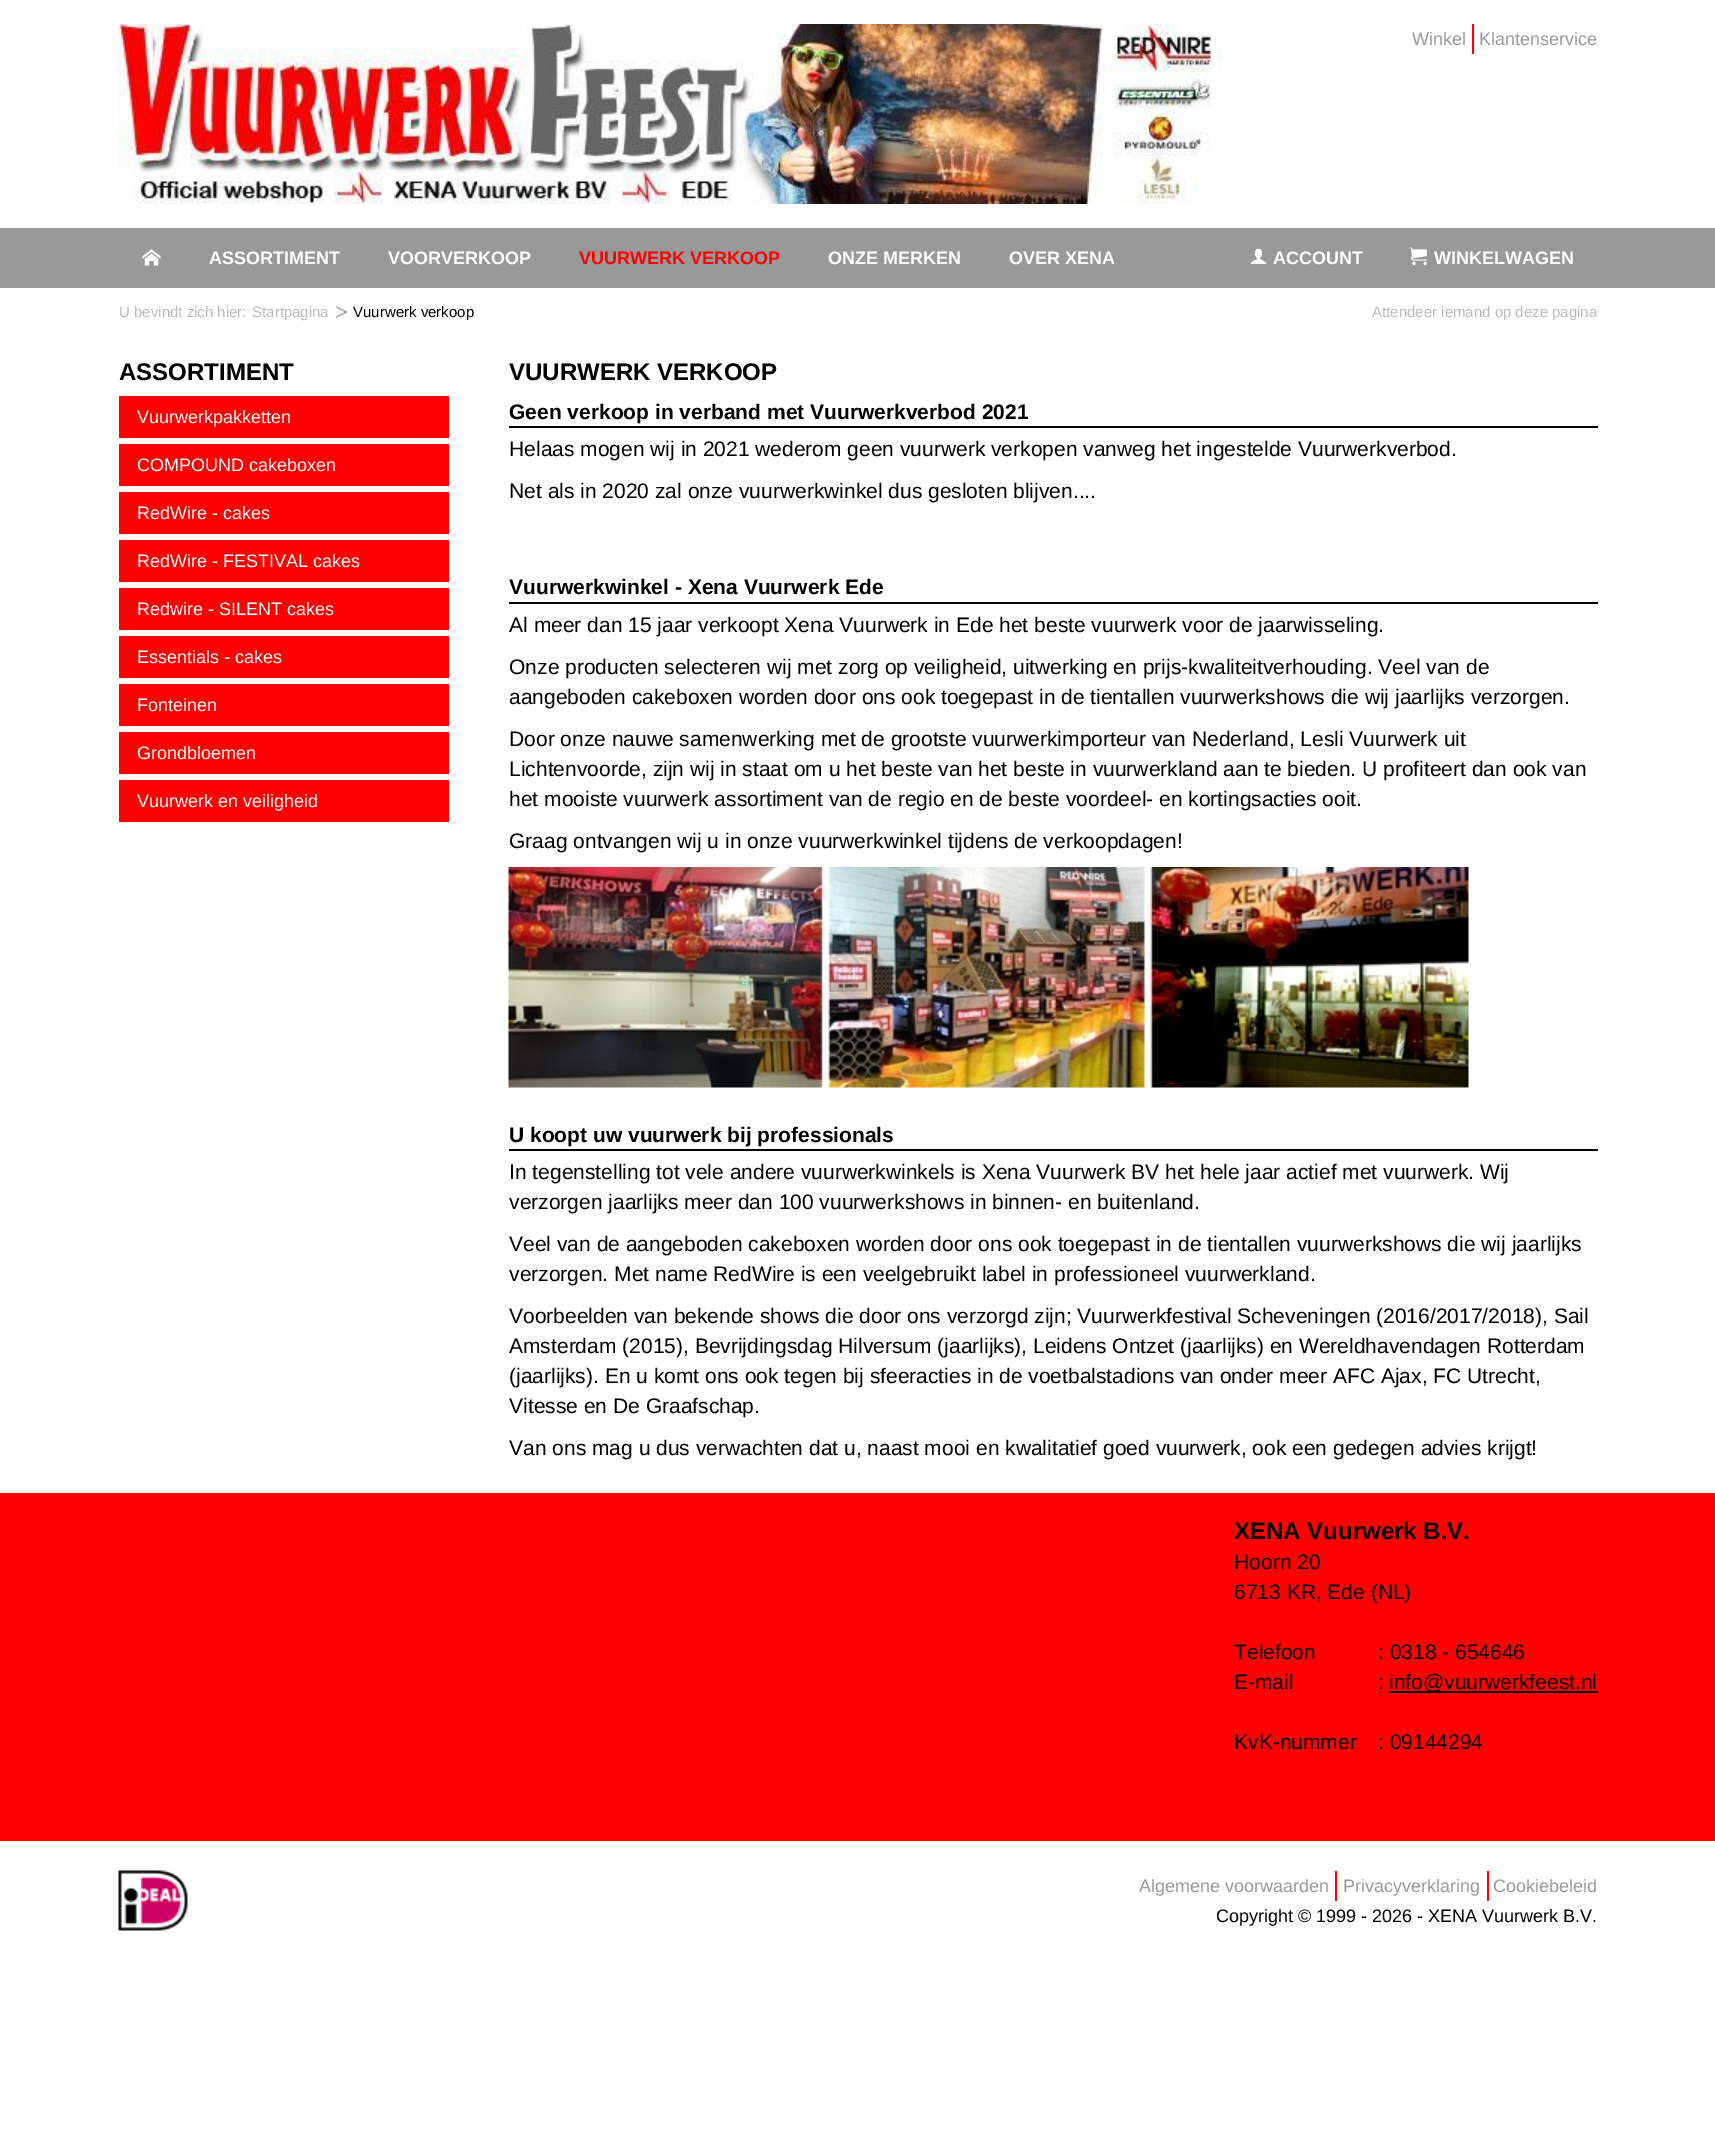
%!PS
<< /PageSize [1715 2153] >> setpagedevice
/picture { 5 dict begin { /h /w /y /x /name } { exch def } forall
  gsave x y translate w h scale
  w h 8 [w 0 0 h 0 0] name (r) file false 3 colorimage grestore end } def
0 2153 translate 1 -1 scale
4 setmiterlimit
1 setgray
0 0 1715 2153 rectfill
(img1.rgb) 118 24 1105 180 picture
/LiberationSans-Regular [18 0 0 -18 0 0] selectfont
0.6 setgray
1412 45 moveto (Winkel) show
1 0 0 setrgbcolor
1472 24 2 30 rectfill
0.6 setgray
1479 45 moveto (Klantenservice) show
0 228 1715 60 rectfill
(img2.rgb) 142 249 19 17 picture
/LiberationSans-Bold [18 0 0 -18 0 0] selectfont
1 setgray
209 264 moveto (ASSORTIMENT) show
388 264 moveto (VOORVERKOOP) show
1 0 0 setrgbcolor
579 264 moveto (VUURWERK VERKOOP) show
1 setgray
828 264 moveto (ONZE MERKEN) show
1009 264 moveto (OVER XENA) show
(img3.rgb) 1250 248 17 16 picture
1273 264 moveto (ACCOUNT) show
(img4.rgb) 1410 247 17 19 picture
1434 264 moveto (WINKELWAGEN) show
/LiberationSans-Regular [15 0 0 -15 0 0] selectfont
0.733 setgray
119 317 moveto (U bevindt zich hier:) show
252 317 moveto (Startpagina) show
(img5.rgb) 335 305 12 14 picture
0 setgray
353 317 moveto (Vuurwerk verkoop) show
0.733 setgray
1372 317 moveto (Attendeer iemand op deze pagina) show
/LiberationSans-Bold [24 0 0 -24 0 0] selectfont
0 setgray
119 380 moveto (ASSORTIMENT) show
1 0 0 setrgbcolor
119 396 330 42 rectfill
/LiberationSans-Regular [18 0 0 -18 0 0] selectfont
1 setgray
137 423 moveto (Vuurwerkpakketten) show
1 0 0 setrgbcolor
119 444 330 42 rectfill
1 setgray
137 471 moveto (COMPOUND cakeboxen) show
1 0 0 setrgbcolor
119 492 330 42 rectfill
1 setgray
137 519 moveto (RedWire - cakes) show
1 0 0 setrgbcolor
119 540 330 42 rectfill
1 setgray
137 567 moveto (RedWire - FESTIVAL cakes) show
1 0 0 setrgbcolor
119 588 330 42 rectfill
1 setgray
137 615 moveto (Redwire - SILENT cakes) show
1 0 0 setrgbcolor
119 636 330 42 rectfill
1 setgray
137 663 moveto (Essentials - cakes) show
1 0 0 setrgbcolor
119 684 330 42 rectfill
1 setgray
137 711 moveto (Fonteinen) show
1 0 0 setrgbcolor
119 732 330 42 rectfill
1 setgray
137 759 moveto (Grondbloemen) show
1 0 0 setrgbcolor
119 780 330 42 rectfill
1 setgray
137 807 moveto (Vuurwerk en veiligheid) show
/LiberationSans-Bold [24 0 0 -24 0 0] selectfont
0 setgray
509 380 moveto (VUURWERK VERKOOP) show
509 426 1089 2 rectfill
/LiberationSans-Bold [21 0 0 -21 0 0] selectfont
509 419 moveto (Geen verkoop in verband met Vuurwerkverbod 2021) show
/LiberationSans-Regular [21 0 0 -21 0 0] selectfont
509 456 moveto (Helaas mogen wij in 2021 wederom geen vuurwerk verkopen vanweg het ingestelde Vuurwerkverbod.) show
509 498 moveto (Net als in 2020 zal onze vuurwerkwinkel dus gesloten blijven....) show
509 602 1089 2 rectfill
/LiberationSans-Bold [21 0 0 -21 0 0] selectfont
509 594 moveto (Vuurwerkwinkel - Xena Vuurwerk Ede) show
/LiberationSans-Regular [21 0 0 -21 0 0] selectfont
509 632 moveto (Al meer dan 15 jaar verkoopt Xena Vuurwerk in Ede het beste vuurwerk voor de jaarwisseling.) show
509 674 moveto (Onze producten selecteren wij met zorg op veiligheid, uitwerking en prijs-kwaliteitverhouding. Veel van de) show
509 704 moveto (aangeboden cakeboxen worden door ons ook toegepast in de tientallen vuurwerkshows die wij jaarlijks verzorgen.) show
509 746 moveto (Door onze nauwe samenwerking met de grootste vuurwerkimporteur van Nederland, Lesli Vuurwerk uit) show
509 776 moveto (Lichtenvoorde, zijn wij in staat om u het beste van het beste in vuurwerkland aan te bieden. U profiteert dan ook van) show
509 806 moveto (het mooiste vuurwerk assortiment van de regio en de beste voordeel- en kortingsacties ooit.) show
509 848 moveto (Graag ontvangen wij u in onze vuurwerkwinkel tijdens de verkoopdagen!) show
(img6.rgb) 508 867 961 221 picture
509 1149 1089 2 rectfill
/LiberationSans-Bold [21 0 0 -21 0 0] selectfont
509 1142 moveto (U koopt uw vuurwerk bij professionals) show
/LiberationSans-Regular [21 0 0 -21 0 0] selectfont
509 1179 moveto (In tegenstelling tot vele andere vuurwerkwinkels is Xena Vuurwerk BV het hele jaar actief met vuurwerk. Wij) show
509 1209 moveto (verzorgen jaarlijks meer dan 100 vuurwerkshows in binnen- en buitenland.) show
509 1251 moveto (Veel van de aangeboden cakeboxen worden door ons ook toegepast in de tientallen vuurwerkshows die wij jaarlijks) show
509 1281 moveto (verzorgen. Met name RedWire is een veelgebruikt label in professioneel vuurwerkland.) show
509 1323 moveto (Voorbeelden van bekende shows die door ons verzorgd zijn; Vuurwerkfestival Scheveningen \(2016/2017/2018\), Sail) show
509 1353 moveto (Amsterdam \(2015\), Bevrijdingsdag Hilversum \(jaarlijks\), Leidens Ontzet \(jaarlijks\) en Wereldhavendagen Rotterdam) show
509 1383 moveto (\(jaarlijks\). En u komt ons ook tegen bij sfeeracties in de voetbalstadions van onder meer AFC Ajax, FC Utrecht,) show
509 1413 moveto (Vitesse en De Graafschap.) show
509 1455 moveto (Van ons mag u dus verwachten dat u, naast mooi en kwalitatief goed vuurwerk, ook een gedegen advies krijgt!) show
1 0 0 setrgbcolor
0 1493 1715 348 rectfill
/LiberationSans-Bold [24 0 0 -24 0 0] selectfont
0 setgray
1234 1539 moveto (XENA Vuurwerk B.V.) show
/LiberationSans-Regular [21 0 0 -21 0 0] selectfont
1234 1569 moveto (Hoorn 20) show
1234 1599 moveto (6713 KR, Ede \(NL\)) show
1234 1659 moveto (Telefoon) show
1378 1659 moveto (: 0318 - 654646) show
1234 1689 moveto (E-mail) show
1378 1689 moveto (:) show
1389 1691 209 2 rectfill
1389 1689 moveto (info@vuurwerkfeest.nl) show
1234 1749 moveto (KvK-nummer) show
1378 1749 moveto (: 09144294) show
(img7.rgb) 118 1870 70 61 picture
/LiberationSans-Regular [18 0 0 -18 0 0] selectfont
0.6 setgray
1139 1892 moveto (Algemene voorwaarden) show
1 0 0 setrgbcolor
1335 1871 2 30 rectfill
0.6 setgray
1343 1892 moveto (Privacyverklaring) show
1 0 0 setrgbcolor
1487 1871 2 30 rectfill
0.6 setgray
1493 1892 moveto (Cookiebeleid) show
0 setgray
1216 1922 moveto (Copyright © 1999 - 2026 - XENA Vuurwerk B.V.) show
showpage
